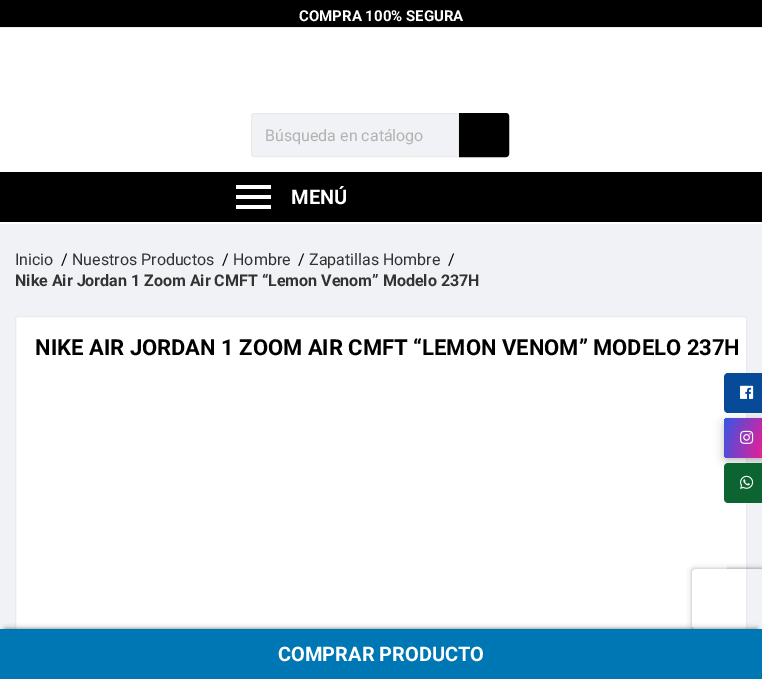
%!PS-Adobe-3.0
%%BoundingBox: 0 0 762 679
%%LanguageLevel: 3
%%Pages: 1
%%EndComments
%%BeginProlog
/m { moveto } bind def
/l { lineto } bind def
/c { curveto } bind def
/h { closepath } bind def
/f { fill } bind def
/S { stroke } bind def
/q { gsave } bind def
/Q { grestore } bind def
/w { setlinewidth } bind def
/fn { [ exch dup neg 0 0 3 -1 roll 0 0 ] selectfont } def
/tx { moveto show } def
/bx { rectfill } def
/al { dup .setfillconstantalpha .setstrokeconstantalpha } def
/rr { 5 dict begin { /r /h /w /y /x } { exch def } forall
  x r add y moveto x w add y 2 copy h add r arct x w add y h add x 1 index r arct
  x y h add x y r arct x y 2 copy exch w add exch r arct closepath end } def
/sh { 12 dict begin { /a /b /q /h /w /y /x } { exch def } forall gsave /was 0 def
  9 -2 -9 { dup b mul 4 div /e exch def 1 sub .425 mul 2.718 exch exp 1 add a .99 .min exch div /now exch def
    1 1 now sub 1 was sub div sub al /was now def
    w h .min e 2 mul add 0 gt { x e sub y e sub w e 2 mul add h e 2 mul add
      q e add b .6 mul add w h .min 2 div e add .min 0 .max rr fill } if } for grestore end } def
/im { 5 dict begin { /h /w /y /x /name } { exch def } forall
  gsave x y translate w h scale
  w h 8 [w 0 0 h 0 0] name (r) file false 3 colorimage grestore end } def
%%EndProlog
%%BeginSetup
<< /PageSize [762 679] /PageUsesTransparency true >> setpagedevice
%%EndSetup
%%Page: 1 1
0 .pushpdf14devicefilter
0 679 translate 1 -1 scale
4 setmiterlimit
1 setgray
0 0 762 679 bx
0 setgray
0 0 762 27 bx
/Roboto-Bold 15 fn
1 setgray
(COMPRA 100% SEGURA) 299 21 tx
0.918 setgray
0 27 762 1 bx
0.941 0.949 0.961 setrgbcolor
254 113.5 m 458.5 113.5 l 458.5 156.5 l 254 156.5 l 252.5 156.5 251.5 155.5 251.5 154 c 251.5 116 l 251.5 114.5 252.5 113.5 254 113.5 c h q f Q
0.918 setgray
S
/Roboto-Regular 16 fn
0.698 setgray
(Búsqueda en catálogo) 265 141 tx
0 setgray
460 114 m 506 114 l 507 114 508 115 508 116 c 508 154 l 508 155 507 156 506 156 c 460 156 l h q f Q
2 w
S
0 172 762 50 bx
1 setgray
236 195 35 4 bx
236 185 35 4 bx
236 205 35 4 bx
/Roboto-Bold 20 fn
(MENÚ) 291 204 tx
0.941 0.949 0.961 setrgbcolor
0 224 762 405 bx
/Roboto-Regular 16 fn
0.2 setgray
(Inicio) 15 265 tx
0 setgray
(/) 61 265 tx
0.2 setgray
(Nuestros Productos) 72 265 tx
0 setgray
(/) 222 265 tx
0.2 setgray
(Hombre) 233 265 tx
0 setgray
(/) 298 265 tx
0.2 setgray
(Zapatillas Hombre) 309 265 tx
0 setgray
(/) 448 265 tx
/Roboto-Bold 16 fn
0.2 setgray
(Nike Air Jordan 1 Zoom Air CMFT “Lemon Venom” Modelo 237H) 15 286 tx
1 setgray
18 317 m 744 317 l 745 317 746 318 746 319 c 746 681 l 16 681 l 16 319 l 16 318 17 317 18 317 c h f
0.918 setgray
1 w
18 316.5 m 744 316.5 l 745.5 316.5 746.5 317.5 746.5 319 c 746.5 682.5 l 15.5 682.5 l 15.5 319 l 15.5 317.5 16.5 316.5 18 316.5 c h S
/Roboto-Bold 22 fn
0 setgray
(NIKE AIR JORDAN 1 ZOOM AIR CMFT “LEMON VENOM” MODELO 237H) 35 355 tx
q
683 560 m 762 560 l 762 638 l 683 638 l h 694 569 m 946 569 l 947 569 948 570 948 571 c 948 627 l 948 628 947 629 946 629 c 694 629 l 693 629 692 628 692 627 c 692 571 l 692 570 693 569 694 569 c h eoclip newpath
0.502 setgray
692 569 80 60 2 2.5 1 sh
Q
0.4 al
1 setgray
688 565 39 64 bx
1 al
0.024 0.29 0.596 setrgbcolor
728 373 m 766 373 l 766 413 l 728 413 l 726 413 724 411 724 409 c 724 377 l 724 375 726 373 728 373 c h f
(image0.raw) 740 385 14 14 im
0 setgray
724 421 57 40 4 5 0.25 sh
q 728 418 m 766 418 l 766 458 l 728 458 l 726 458 724 456 724 454 c 724 422 l 724 420 726 418 728 418 c h clip newpath 822 461 translate 110 110 scale
<< /ShadingType 3 /ColorSpace /DeviceRGB /Coords [0 0 0 0 0 1] /Extend [true true] /Function << /FunctionType 3 /Domain [0 1] /Functions [<< /FunctionType 2 /Domain [0 1] /C0 [0.992 0.957 0.592] /C1 [0.992 0.957 0.592] /N 1 >> << /FunctionType 2 /Domain [0 1] /C0 [0.992 0.957 0.592] /C1 [0.992 0.349 0.286] /N 1 >> << /FunctionType 2 /Domain [0 1] /C0 [0.992 0.349 0.286] /C1 [0.839 0.141 0.624] /N 1 >> << /FunctionType 2 /Domain [0 1] /C0 [0.839 0.141 0.624] /C1 [0.157 0.353 0.922] /N 1 >>] /Bounds [0.05 0.44 0.58] /Encode [0 1 0 1 0 1 0 1] >> >> shfill Q
(image1.raw) 740 430 14 14 im
0.047 0.392 0.192 setrgbcolor
728 463 m 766 463 l 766 503 l 728 503 l 726 503 724 501 724 499 c 724 467 l 724 465 726 463 728 463 c h f
(image2.raw) 740 475 14 14 im
0.2 setgray
5 629 752 40 0 2.5 0.7 sh
0 0.467 0.71 setrgbcolor
0 629 762 50 bx
/Roboto-Bold 20 fn
1 setgray
(COMPRAR PRODUCTO) 278 661 tx
.poppdf14devicefilter showpage
%%EOF
